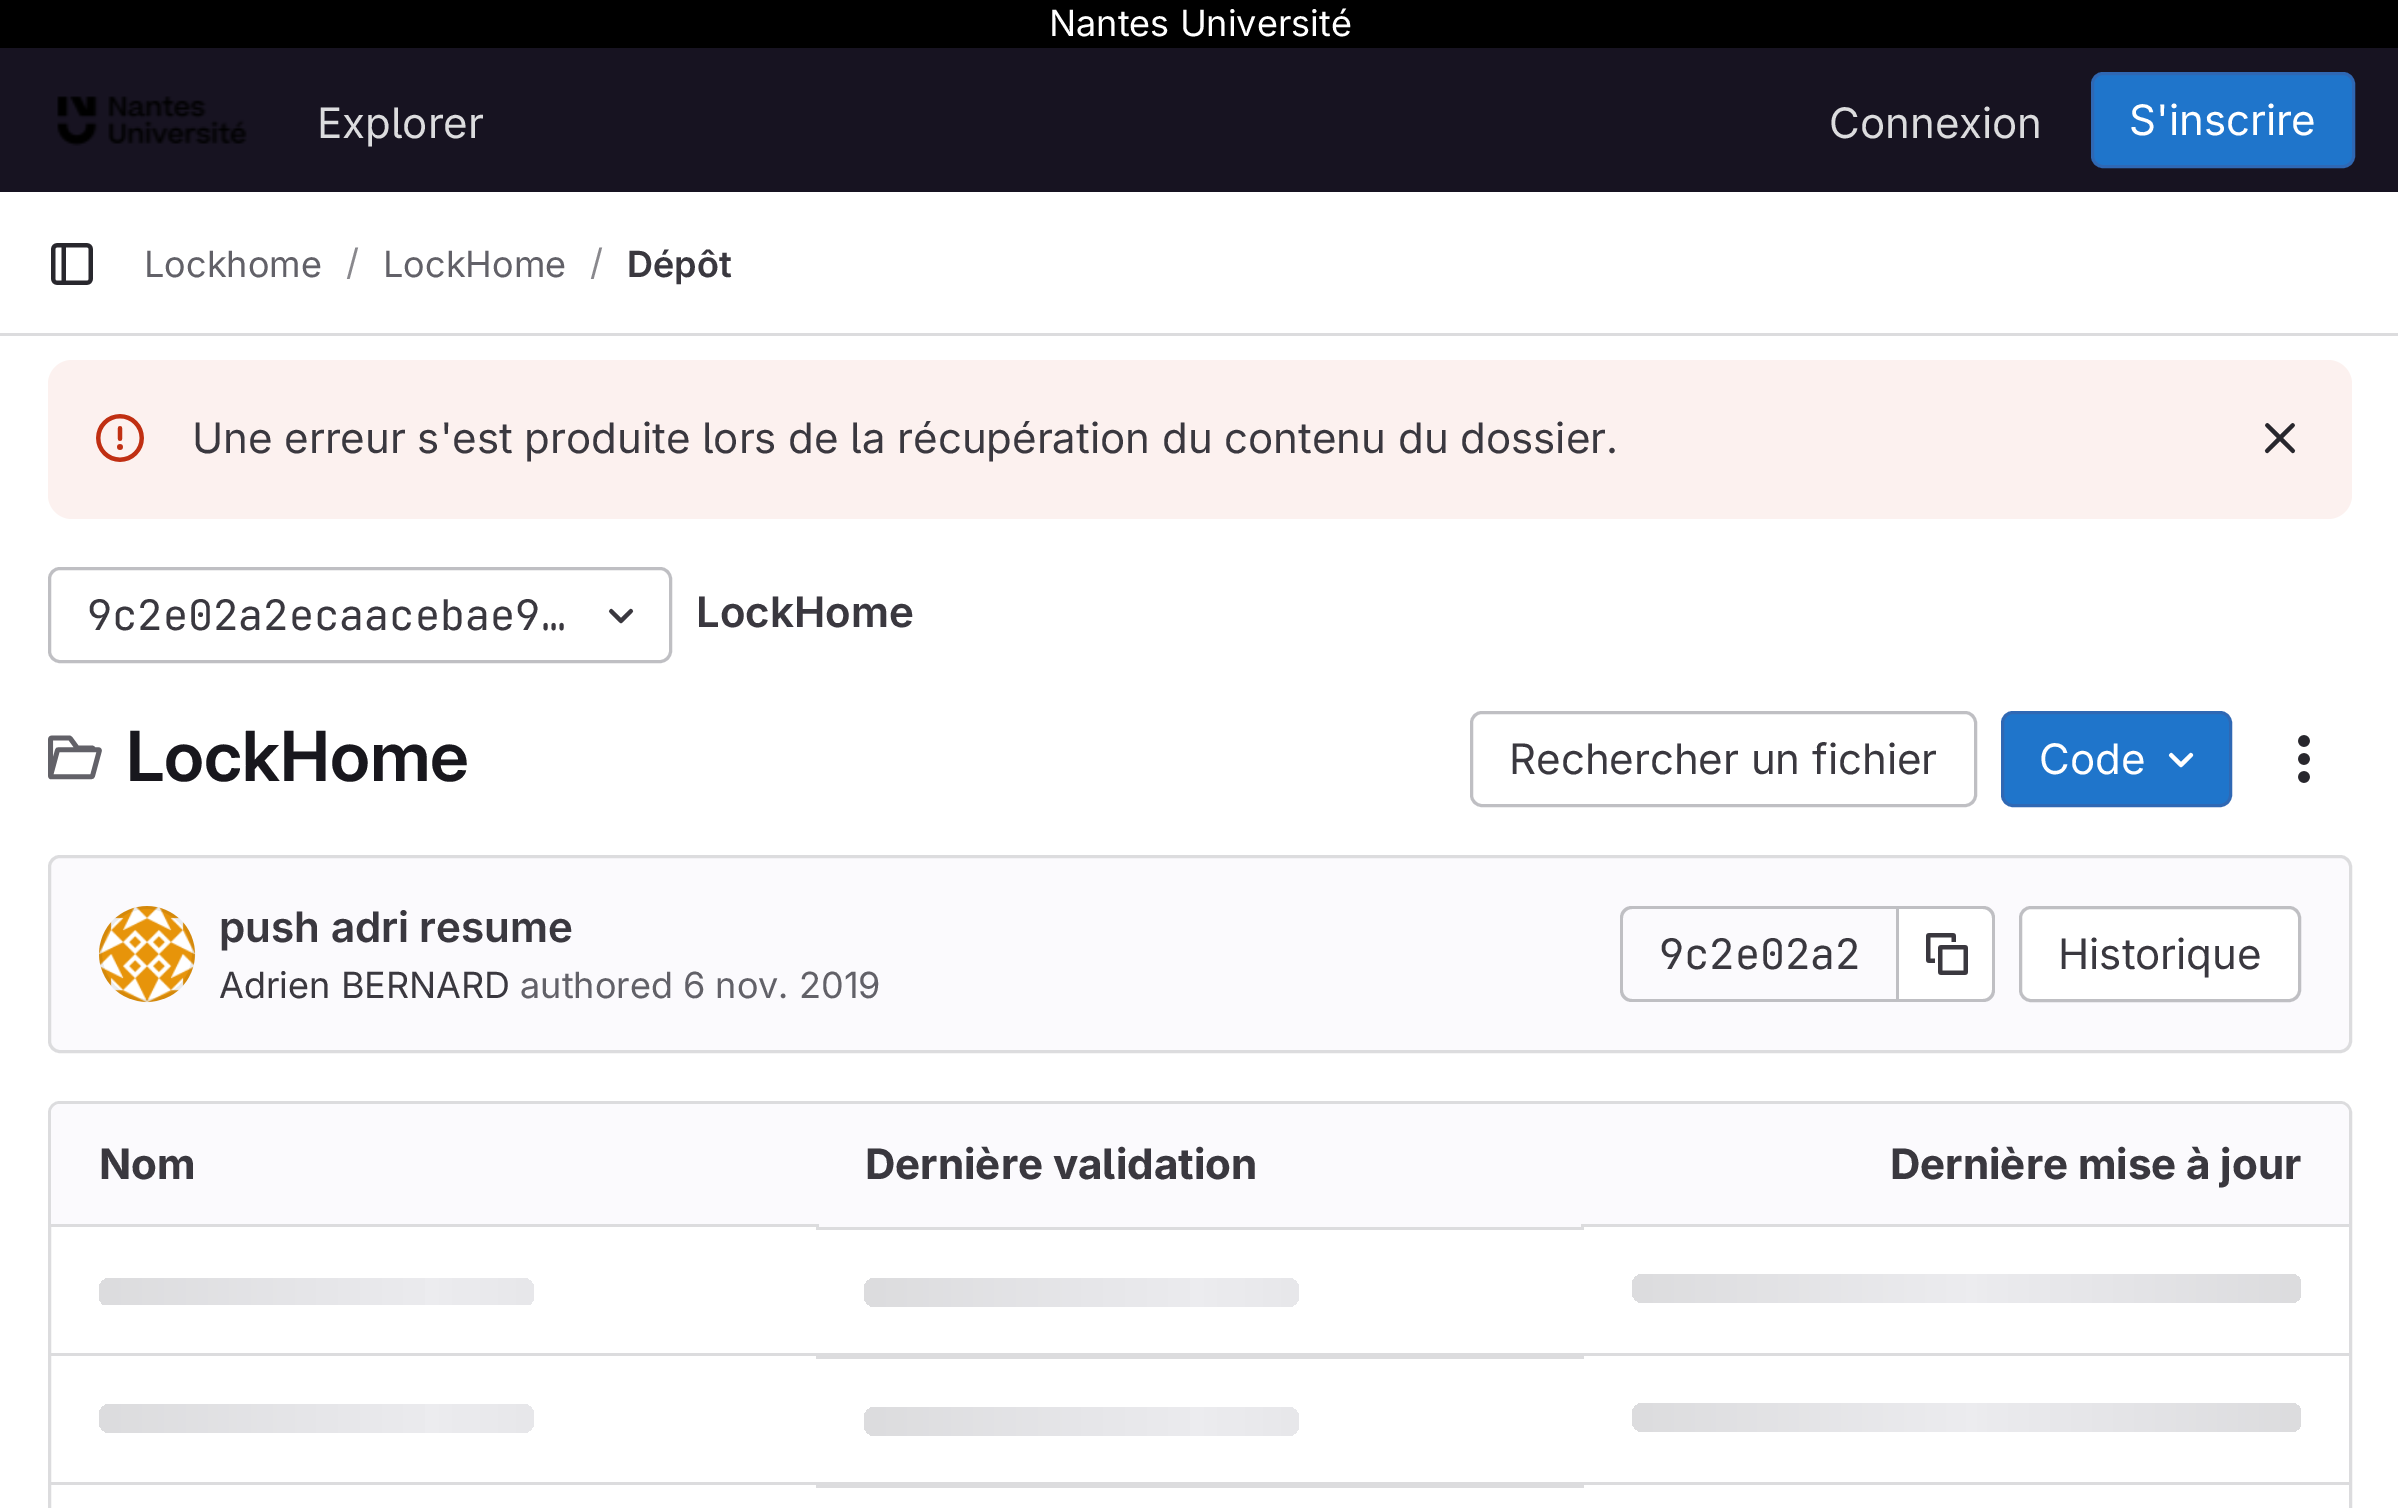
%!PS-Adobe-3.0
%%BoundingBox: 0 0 2398 1508
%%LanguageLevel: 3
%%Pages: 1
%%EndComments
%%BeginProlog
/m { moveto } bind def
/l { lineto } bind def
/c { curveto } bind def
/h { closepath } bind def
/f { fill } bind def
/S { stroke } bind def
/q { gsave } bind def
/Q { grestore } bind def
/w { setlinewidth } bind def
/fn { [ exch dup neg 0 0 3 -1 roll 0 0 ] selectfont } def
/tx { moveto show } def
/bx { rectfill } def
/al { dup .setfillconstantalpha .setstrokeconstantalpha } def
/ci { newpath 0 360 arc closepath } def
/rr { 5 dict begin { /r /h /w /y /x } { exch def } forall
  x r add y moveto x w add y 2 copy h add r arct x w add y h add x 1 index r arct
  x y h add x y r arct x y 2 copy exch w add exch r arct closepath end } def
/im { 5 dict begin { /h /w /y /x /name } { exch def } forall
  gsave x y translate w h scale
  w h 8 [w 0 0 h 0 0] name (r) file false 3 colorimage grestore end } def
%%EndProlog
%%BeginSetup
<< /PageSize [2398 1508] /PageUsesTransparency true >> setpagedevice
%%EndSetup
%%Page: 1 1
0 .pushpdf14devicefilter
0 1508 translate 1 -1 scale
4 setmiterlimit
1 setgray
0 0 2398 1508 bx
0 setgray
0 0 2398 48 bx
/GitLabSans-Regular 36 fn
1 setgray
(Nantes Université) 1049 36 tx
0.09 0.075 0.129 setrgbcolor
0 48 2398 144 bx
(image0.raw) 57 96 190 50 im
/GitLabSans-Regular 42 fn
0.863 0.863 0.871 setrgbcolor
(Explorer) 317 138 tx
(Connexion) 1829 138 tx
0.122 0.459 0.796 setrgbcolor
2092.5 73.5 261 93 10.5 rr q f Q
0.184 0.408 0.706 setrgbcolor
3 w
S
1 setgray
(S'inscrire) 2129 135 tx
0.863 0.863 0.871 setrgbcolor
0 333 2398 3 bx
(image1.raw) 51 243 42 42 im
/GitLabSans-Regular 36 fn
0.384 0.38 0.408 setrgbcolor
(Lockhome) 144 277 tx
0.537 0.533 0.553 setrgbcolor
(/) 346 275 tx
0.384 0.38 0.408 setrgbcolor
(LockHome) 383 277 tx
0.537 0.533 0.553 setrgbcolor
(/) 590 275 tx
/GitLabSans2-SemiBold 36 fn
0.227 0.22 0.247 setrgbcolor
(Dépôt) 627 277 tx
0.988 0.945 0.937 setrgbcolor
48 360 2304 159 24 rr f
(image2.raw) 96 414 48 48 im
/GitLabSans-Regular 42 fn
0.227 0.22 0.247 setrgbcolor
(Une erreur s'est produite lors de la récupération du contenu du dossier.) 192 453 tx
(image3.raw) 2264 423 32 31 im
0.749 0.749 0.765 setrgbcolor
49.5 568.5 621 93 10.5 rr S
/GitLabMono-Regular 42 fn
0.227 0.22 0.247 setrgbcolor
(9c2e02a2ecaacebae9…) 87 630 tx
(image4.raw) 608 608 26 16 im
/GitLabSans2-SemiBold 42 fn
(LockHome) 696 627 tx
(image5.raw) 48 735 54 45 im
/GitLabSans-SemiBold 69 fn
0.094 0.09 0.114 setrgbcolor
(LockHome) 126 781 tx
0.749 0.749 0.765 setrgbcolor
1471.5 712.5 504 93 10.5 rr S
/GitLabSans-Regular 42 fn
0.227 0.22 0.247 setrgbcolor
(Rechercher un fichier) 1509 774 tx
0.122 0.459 0.796 setrgbcolor
2002.5 712.5 228 93 10.5 rr q f Q
0.184 0.408 0.706 setrgbcolor
S
1 setgray
(Code) 2039 774 tx
(image6.raw) 2168 752 26 16 im
(image7.raw) 2298 735 12 48 im
0.984 0.98 0.992 setrgbcolor
49.5 856.5 2301 195 10.5 rr q f Q
0.863 0.863 0.871 setrgbcolor
S
(image8.raw) 99 906 96 96 im
0.08 al
0.02 0.02 0.024 setrgbcolor
147 954 46.5 ci S
/GitLabSans2-SemiBold 42 fn
1 al
0.227 0.22 0.247 setrgbcolor
(push adri resume) 219 942 tx
/GitLabSans-Regular 36 fn
(Adrien BERNARD) 219 998 tx
0.384 0.38 0.408 setrgbcolor
(authored 6 nov. 2019) 520 998 tx
0.749 0.749 0.765 setrgbcolor
1632 906 m 1896 906 l 1896 1002 l 1632 1002 l 1625 1002 1620 997 1620 990 c 1620 918 l 1620 911 1625 906 1632 906 c h 1632 909 m 1896 909 l 1896 999 l 1632 999 l 1627 999 1623 995 1623 990 c 1623 918 l 1623 913 1627 909 1632 909 c h eofill
/GitLabMono-Regular 42 fn
0.227 0.22 0.247 setrgbcolor
(9c2e02a2) 1659 969 tx
1 setgray
1899 909 m 1983 909 l 1988 909 1992 913 1992 918 c 1992 990 l 1992 995 1988 999 1983 999 c 1899 999 l h f
0.749 0.749 0.765 setrgbcolor
1899 906 m 1983 906 l 1990 906 1995 911 1995 918 c 1995 990 l 1995 997 1990 1002 1983 1002 c 1899 1002 l h 1899 909 m 1983 909 l 1988 909 1992 913 1992 918 c 1992 990 l 1992 995 1988 999 1983 999 c 1899 999 l h eofill
1896 906 3 96 bx
(image9.raw) 1926 933 42 42 im
1 setgray
2020.5 907.5 279 93 10.5 rr q f Q
0.749 0.749 0.765 setrgbcolor
S
/GitLabSans-Regular 42 fn
0.227 0.22 0.247 setrgbcolor
(Historique) 2058 969 tx
0.863 0.863 0.871 setrgbcolor
49.5 1102.5 2301 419 10.5 rr S
0.984 0.98 0.992 setrgbcolor
60 1104 m 816 1104 l 816 1227 l 51 1227 l 51 1113 l 51 1108 55 1104 60 1104 c h f
/GitLabSans-Bold 42 fn
0.227 0.22 0.247 setrgbcolor
(Nom) 99 1179 tx
0.984 0.98 0.992 setrgbcolor
816 1104 768 123 bx
0.227 0.22 0.247 setrgbcolor
(Dernière validation) 865 1179 tx
0.984 0.98 0.992 setrgbcolor
1584 1104 m 2340 1104 l 2345 1104 2349 1108 2349 1113 c 2349 1227 l 1584 1227 l h f
0.227 0.22 0.247 setrgbcolor
(Dernière mise à jour) 1890 1179 tx
0.863 0.863 0.871 setrgbcolor
51 1353 2298 3 bx
51 1224 768 3 bx
q
99 1278 435 29 11 rr clip newpath
q 110 1278 m 523 1278 l 529 1278 534 1283 534 1289 c 534 1305 l 99 1305 l 99 1289 l 99 1283 104 1278 110 1278 c h clip newpath
<< /ShadingType 2 /ColorSpace /DeviceRGB /Coords [99 1278 769 1278] /Extend [true true] /Function << /FunctionType 3 /Domain [0 1] /Functions [<< /FunctionType 2 /Domain [0 1] /C0 [0.863 0.863 0.871] /C1 [0.925 0.925 0.937] /N 1 >> << /FunctionType 2 /Domain [0 1] /C0 [0.925 0.925 0.937] /C1 [0.863 0.863 0.871] /N 1 >>] /Bounds [0.5] /Encode [0 1 0 1] >> >> shfill Q
Q
816 1227 768 3 bx
q 864 1278 435 29 11 rr clip newpath
<< /ShadingType 2 /ColorSpace /DeviceRGB /Coords [864 1278 1534 1278] /Extend [true true] /Function << /FunctionType 3 /Domain [0 1] /Functions [<< /FunctionType 2 /Domain [0 1] /C0 [0.863 0.863 0.871] /C1 [0.925 0.925 0.937] /N 1 >> << /FunctionType 2 /Domain [0 1] /C0 [0.925 0.925 0.937] /C1 [0.863 0.863 0.871] /N 1 >>] /Bounds [0.5] /Encode [0 1 0 1] >> >> shfill Q
1581 1224 768 3 bx
q
1632 1274 670 29 11 rr clip newpath
q 1643 1274 m 2301 1274 l 2301 1303 l 1643 1303 l 1637 1303 1632 1298 1632 1292 c 1632 1285 l 1632 1279 1637 1274 1643 1274 c h clip newpath
<< /ShadingType 2 /ColorSpace /DeviceRGB /Coords [1632 1274 2302 1274] /Extend [true true] /Function << /FunctionType 3 /Domain [0 1] /Functions [<< /FunctionType 2 /Domain [0 1] /C0 [0.863 0.863 0.871] /C1 [0.925 0.925 0.937] /N 1 >> << /FunctionType 2 /Domain [0 1] /C0 [0.925 0.925 0.937] /C1 [0.863 0.863 0.871] /N 1 >>] /Bounds [0.5] /Encode [0 1 0 1] >> >> shfill Q
Q
51 1482 2298 3 bx
q 99 1404 435 29 11 rr clip newpath
<< /ShadingType 2 /ColorSpace /DeviceRGB /Coords [99 1404 769 1404] /Extend [true true] /Function << /FunctionType 3 /Domain [0 1] /Functions [<< /FunctionType 2 /Domain [0 1] /C0 [0.863 0.863 0.871] /C1 [0.925 0.925 0.937] /N 1 >> << /FunctionType 2 /Domain [0 1] /C0 [0.925 0.925 0.937] /C1 [0.863 0.863 0.871] /N 1 >>] /Bounds [0.5] /Encode [0 1 0 1] >> >> shfill Q
816 1356 768 3 bx
q 864 1407 435 29 11 rr clip newpath
<< /ShadingType 2 /ColorSpace /DeviceRGB /Coords [864 1407 1534 1407] /Extend [true true] /Function << /FunctionType 3 /Domain [0 1] /Functions [<< /FunctionType 2 /Domain [0 1] /C0 [0.863 0.863 0.871] /C1 [0.925 0.925 0.937] /N 1 >> << /FunctionType 2 /Domain [0 1] /C0 [0.925 0.925 0.937] /C1 [0.863 0.863 0.871] /N 1 >>] /Bounds [0.5] /Encode [0 1 0 1] >> >> shfill Q
q
1632 1403 670 29 11 rr clip newpath
q 1643 1403 m 2301 1403 l 2301 1432 l 1643 1432 l 1637 1432 1632 1427 1632 1421 c 1632 1414 l 1632 1408 1637 1403 1643 1403 c h clip newpath
<< /ShadingType 2 /ColorSpace /DeviceRGB /Coords [1632 1403 2302 1403] /Extend [true true] /Function << /FunctionType 3 /Domain [0 1] /Functions [<< /FunctionType 2 /Domain [0 1] /C0 [0.863 0.863 0.871] /C1 [0.925 0.925 0.937] /N 1 >> << /FunctionType 2 /Domain [0 1] /C0 [0.925 0.925 0.937] /C1 [0.863 0.863 0.871] /N 1 >>] /Bounds [0.5] /Encode [0 1 0 1] >> >> shfill Q
Q
816 1485 768 3 bx
.poppdf14devicefilter showpage
%%EOF
